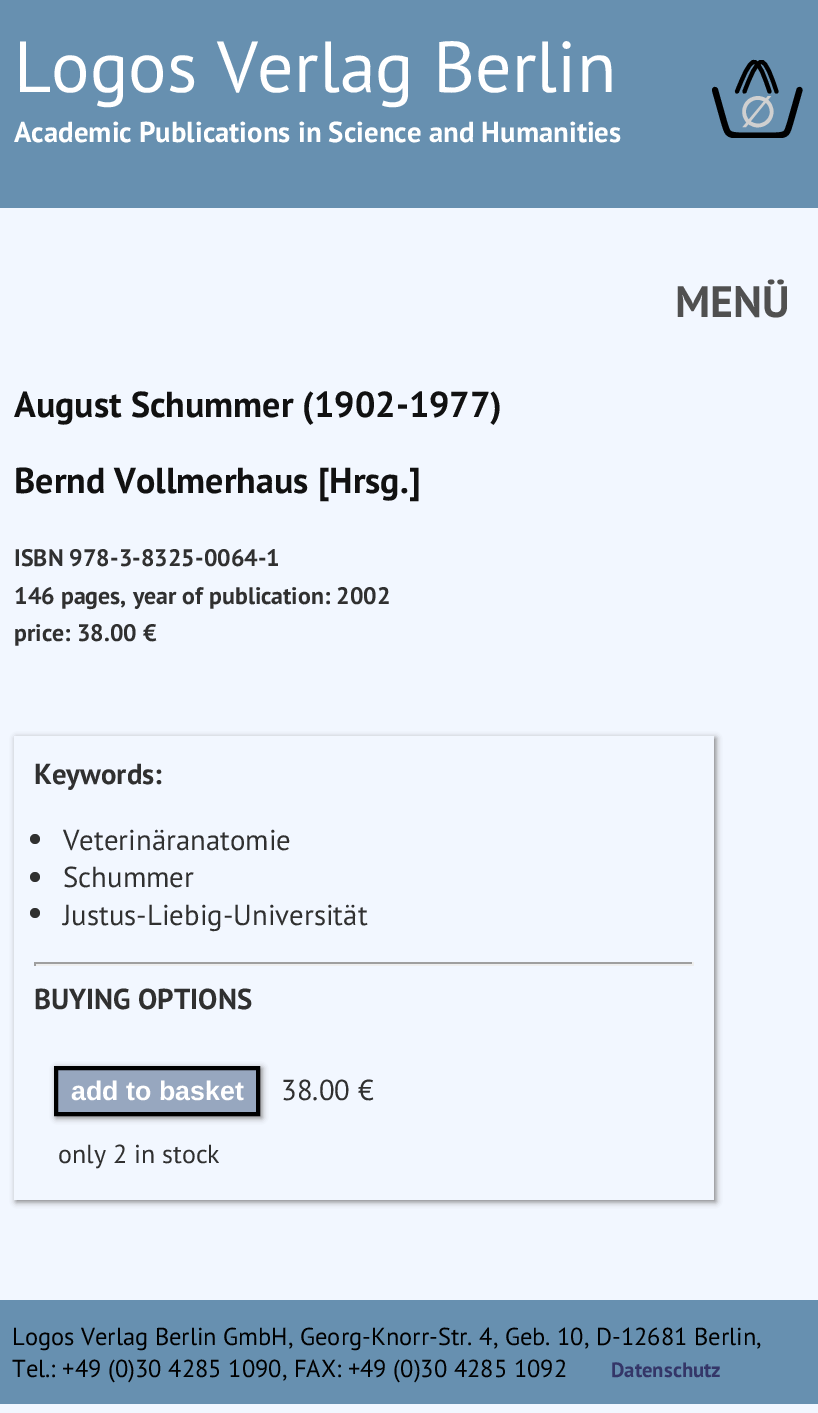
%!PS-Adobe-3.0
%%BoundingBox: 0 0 818 1413
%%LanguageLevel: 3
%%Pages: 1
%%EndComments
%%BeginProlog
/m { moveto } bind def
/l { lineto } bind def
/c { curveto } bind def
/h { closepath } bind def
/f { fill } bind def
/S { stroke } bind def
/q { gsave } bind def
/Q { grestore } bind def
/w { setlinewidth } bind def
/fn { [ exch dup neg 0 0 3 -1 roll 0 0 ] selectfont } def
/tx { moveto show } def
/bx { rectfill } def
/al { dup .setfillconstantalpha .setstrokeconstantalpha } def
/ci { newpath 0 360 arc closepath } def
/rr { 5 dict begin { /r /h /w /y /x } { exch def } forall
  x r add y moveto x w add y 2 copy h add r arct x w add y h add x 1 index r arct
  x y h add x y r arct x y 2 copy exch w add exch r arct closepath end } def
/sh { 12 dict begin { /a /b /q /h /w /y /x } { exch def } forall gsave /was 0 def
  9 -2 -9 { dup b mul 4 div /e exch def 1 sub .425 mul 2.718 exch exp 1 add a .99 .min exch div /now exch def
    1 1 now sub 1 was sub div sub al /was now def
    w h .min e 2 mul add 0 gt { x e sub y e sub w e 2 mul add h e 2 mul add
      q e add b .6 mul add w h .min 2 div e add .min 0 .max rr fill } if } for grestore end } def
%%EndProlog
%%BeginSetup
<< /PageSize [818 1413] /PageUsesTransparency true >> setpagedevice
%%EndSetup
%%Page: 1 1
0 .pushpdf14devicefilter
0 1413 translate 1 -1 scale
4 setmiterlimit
0.949 0.969 1 setrgbcolor
0 0 818 1413 bx
0.404 0.565 0.69 setrgbcolor
0 0 818 208 bx
/PTSans-Regular 72 fn
1 setgray
(Logos Verlag Berlin) 14 92 tx
/PTSans-Bold 28.8 fn
(Academic Publications in Science and Humanities) 14 142 tx
q
712 60 92 78 rectclip
0 setgray
6.1 w
1 setlinecap
715 90 m 724 122 l 727.5 133 727 135 738.5 135.5 c 777 135.5 l 787.5 135 787 132.5 790 123.5 c 799.5 90 l S
Q
/DejaVuSans-Bold 42 fn
0.816 setgray
(∅) 739 127 tx
0 setgray
4.1 w
1 setlinecap
737 91.5 m 743 77 748.5 62.5 754 62 c 759.5 62 764.5 77 769.5 91.5 c 744.5 91.5 m 750 77 756 62 761.5 62 c 766.5 62 771.5 76.5 776.5 91.5 c S
/PTSans-Bold 44 fn
0.314 setgray
(MENÜ) 675 317 tx
/PTSans-Bold 36 fn
0.067 setgray
(August Schummer \(1902-1977\)) 14 417 tx
(Bernd Vollmerhaus [Hrsg.]) 14 493 tx
/PTSans-Bold 23.9 fn
0.188 setgray
(ISBN 978-3-8325-0064-1) 14 566 tx
(146 pages, year of publication: 2002) 14 604 tx
(price: 38.00 €) 14 641 tx
q
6 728 m 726 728 l 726 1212 l 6 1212 l h 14 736 m 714 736 l 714 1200 l 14 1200 l h eoclip newpath
0.502 setgray
16 738 700 464 0 3 1 sh
Q
/PTSans-Bold 28.8 fn
(Keywords:) 34 784 tx
35 839 5 ci f
/PTSans-Regular 28.8 fn
(Veterinäranatomie) 63 850 tx
35 877 5 ci f
(Schummer) 63 887 tx
35 913 5 ci f
(Justus-Liebig-Universität) 63 925 tx
0.624 setgray
34 962 660 2 bx
0.933 setgray
692 962 2 4 bx
34 964 660 2 bx
0.624 setgray
34 962 2 4 bx
/PTSans-Bold 28.8 fn
0.188 setgray
(BUYING OPTIONS) 34 1009 tx
0.502 setgray
56 1068 206 50 0 3 1 sh
0.592 0.655 0.749 setrgbcolor
56 1068 m 258 1068 l 258 1114 l 56 1114 l h q f Q
0 setgray
4 w
0 setlinecap
S
/LiberationSans-Bold 26.75 fn
1 setgray
(add to basket) 71 1100 tx
/PTSans-Regular 28.8 fn
0.188 setgray
(38.00 €) 281 1100 tx
/PTSans-Regular 26 fn
(only 2 in stock) 58 1163 tx
0.404 0.565 0.69 setrgbcolor
0 1300 818 104 bx
/PTSans-Regular 24.5 fn
0 setgray
(Logos Verlag Berlin GmbH, Georg-Knorr-Str. 4, Geb. 10, D-12681 Berlin,) 12 1345 tx
(Tel.: +49 \(0\)30 4285 1090, FAX: +49 \(0\)30 4285 1092) 12 1377 tx
/PTSans-Bold 20.75 fn
0.204 0.212 0.408 setrgbcolor
(Datenschutz) 611 1377 tx
.poppdf14devicefilter showpage
%%EOF
